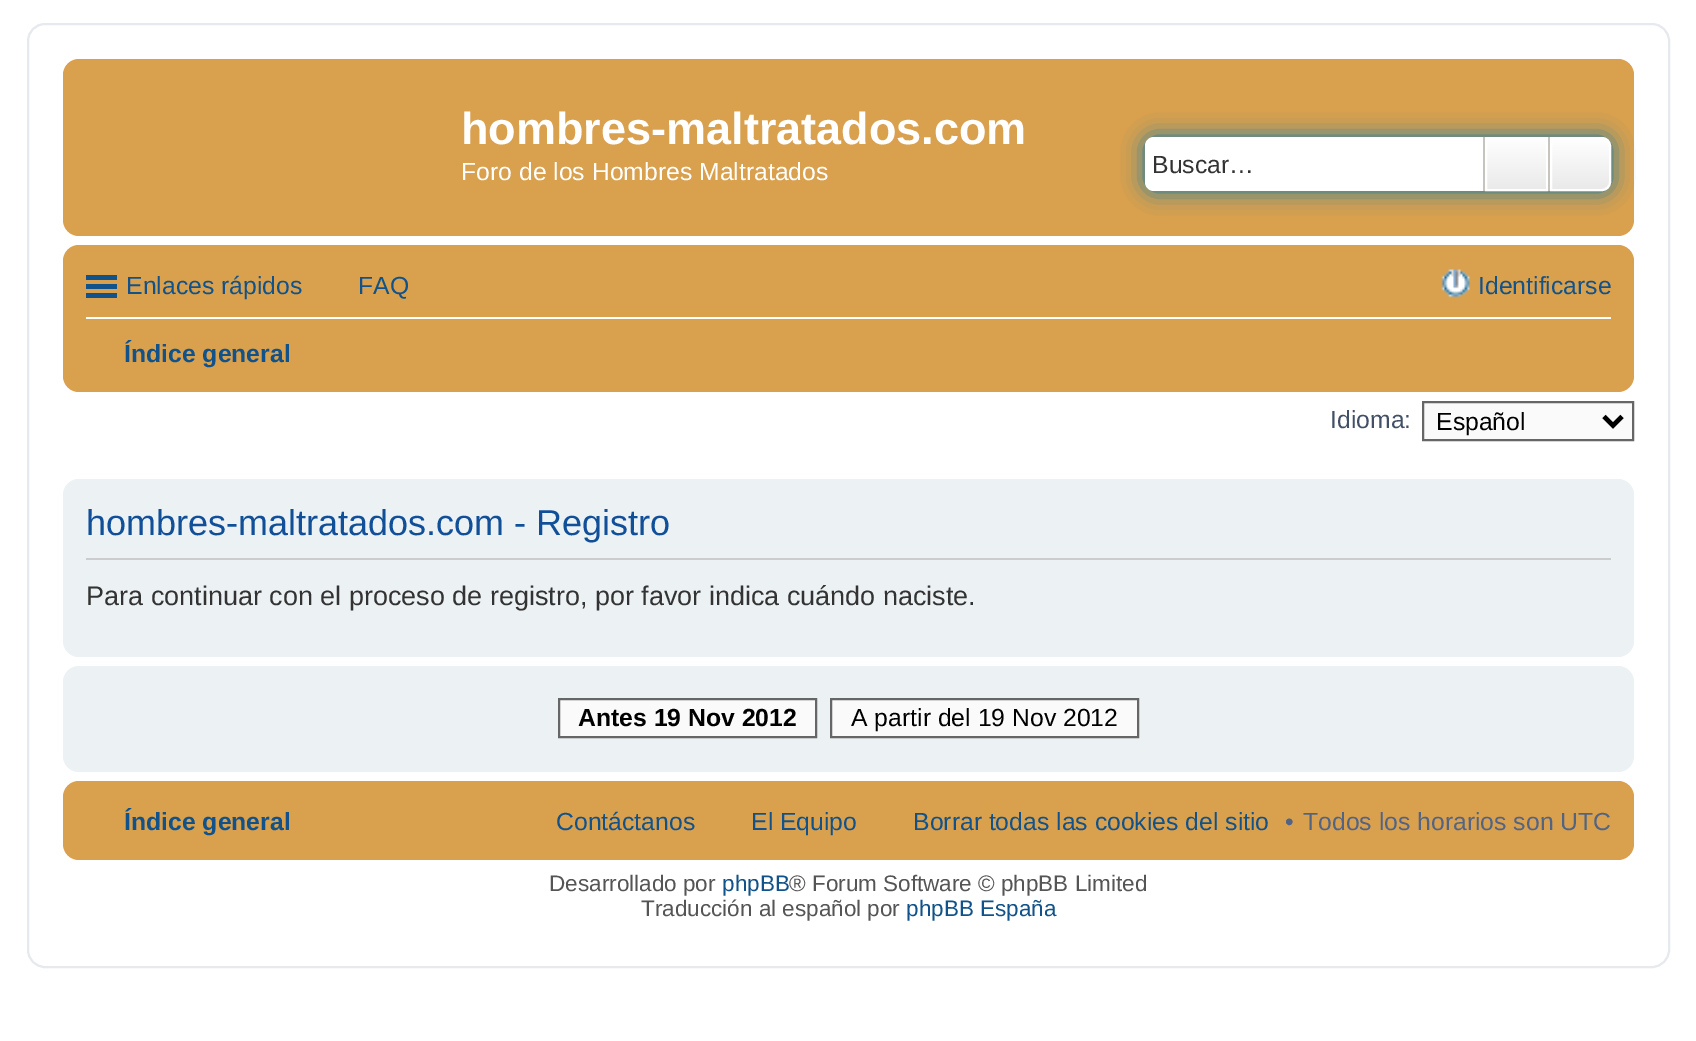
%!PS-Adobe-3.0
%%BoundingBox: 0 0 1696 1041
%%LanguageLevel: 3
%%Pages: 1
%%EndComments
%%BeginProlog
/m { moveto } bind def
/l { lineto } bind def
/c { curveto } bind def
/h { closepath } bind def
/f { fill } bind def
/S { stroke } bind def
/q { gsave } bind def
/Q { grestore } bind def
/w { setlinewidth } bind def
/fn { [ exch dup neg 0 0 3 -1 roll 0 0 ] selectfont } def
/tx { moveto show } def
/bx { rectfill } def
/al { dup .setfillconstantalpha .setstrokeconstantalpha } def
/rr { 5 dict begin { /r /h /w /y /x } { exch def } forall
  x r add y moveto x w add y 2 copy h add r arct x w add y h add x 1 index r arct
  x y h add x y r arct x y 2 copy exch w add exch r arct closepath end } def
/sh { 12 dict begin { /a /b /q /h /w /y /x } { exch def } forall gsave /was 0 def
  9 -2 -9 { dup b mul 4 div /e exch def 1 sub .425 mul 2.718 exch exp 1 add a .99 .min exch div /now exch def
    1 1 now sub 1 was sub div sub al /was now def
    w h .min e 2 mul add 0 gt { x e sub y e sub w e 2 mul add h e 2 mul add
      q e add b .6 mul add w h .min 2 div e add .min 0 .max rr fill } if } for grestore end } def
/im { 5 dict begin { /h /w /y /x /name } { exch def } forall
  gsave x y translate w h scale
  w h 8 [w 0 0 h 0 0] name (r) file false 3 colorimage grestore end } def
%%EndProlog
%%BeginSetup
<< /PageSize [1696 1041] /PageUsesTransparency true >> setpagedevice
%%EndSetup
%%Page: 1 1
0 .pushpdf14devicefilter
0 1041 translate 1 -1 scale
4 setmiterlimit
1 setgray
0 0 1696 1041 bx
0.902 0.914 0.929 setrgbcolor
2 w
28 24 1641 943 17 rr S
0.851 0.627 0.306 setrgbcolor
63 59 1571 177 16 rr f
/LiberationSans-Bold 45 fn
1 setgray
(hombres-maltratados.com) 461 144 tx
/LiberationSans-Regular 24.75 fn
(Foro de los Hombres Maltratados) 461 180 tx
0 0.459 0.69 setrgbcolor
1145 137 466 54 9 11 1 sh
1 setgray
1154 137 m 1483 137 l 1483 191 l 1154 191 l 1149 191 1145 187 1145 182 c 1145 146 l 1145 141 1149 137 1154 137 c h f
0.2 setgray
(Buscar…) 1152 173 tx
q 1487 139 m 1546 139 l 1546 189 l 1487 189 l h clip newpath
<< /ShadingType 2 /ColorSpace /DeviceRGB /Coords [1517 137 1517 191] /Extend [true true] /Function << /FunctionType 2 /Domain [0 1] /C0 [1 1 1] /C1 [0.914 0.914 0.914] /N 1 >> >> shfill Q
1 setgray
1486 138 61 52 rectstroke
0.78 0.765 0.749 setrgbcolor
1548 137 2 54 bx
1483 137 2 54 bx
q 1551 138 m 1602 138 l 1606.5 138 1610 141.5 1610 146 c 1610 182 l 1610 186.5 1606.5 190 1602 190 c 1551 190 l h clip newpath
<< /ShadingType 2 /ColorSpace /DeviceRGB /Coords [1581 137 1581 191] /Extend [true true] /Function << /FunctionType 2 /Domain [0 1] /C0 [1 1 1] /C1 [0.914 0.914 0.914] /N 1 >> >> shfill Q
1 setgray
1551 138 m 1602 138 l 1606.5 138 1610 141.5 1610 146 c 1610 182 l 1610 186.5 1606.5 190 1602 190 c 1551 190 l h S
0.851 0.627 0.306 setrgbcolor
63 245 1571 147 16 rr f
0.063 0.322 0.537 setrgbcolor
86 275 31 5 bx
86 284 31 5 bx
86 293 31 5 bx
(Enlaces rápidos) 126 294 tx
(FAQ) 358 294 tx
(image0.raw) 1441 269 29 29 im
(Identificarse) 1478 294 tx
1 setgray
86 317 1525 2 bx
/LiberationSans-Bold 24.75 fn
0.063 0.322 0.537 setrgbcolor
(Índice general) 124 362 tx
/LiberationSans-Regular 24.75 fn
0.259 0.314 0.404 setrgbcolor
(Idioma:) 1330 428 tx
0.98 setgray
1423 402 m 1633 402 l 1633 440 l 1423 440 l h q f Q
0.4 setgray
S
0 setgray
4.5 w
1604 416.5 m 1613 425.5 l 1622 416.5 l S
(Español) 1436 430 tx
0.925 0.945 0.953 setrgbcolor
63 479 1571 178 16 rr f
0.8 setgray
86 558 1525 2 bx
/LiberationSans-Regular 36 fn
0.067 0.314 0.596 setrgbcolor
(hombres-maltratados.com - Registro) 86 535 tx
/LiberationSans-Regular 27 fn
0.2 setgray
(Para continuar con el proceso de registro, por favor indica cuándo naciste.) 86 605 tx
0.925 0.945 0.953 setrgbcolor
63 666 1571 106 16 rr f
0.98 setgray
559 699 m 816 699 l 816 737 l 559 737 l h q f Q
0.4 setgray
2 w
S
/LiberationSans-Bold 24.75 fn
0 setgray
(Antes 19 Nov 2012) 578 726 tx
0.98 setgray
831 699 m 1138 699 l 1138 737 l 831 737 l h q f Q
0.4 setgray
S
/LiberationSans-Regular 24.75 fn
0 setgray
(A partir del 19 Nov 2012) 851 726 tx
0.851 0.627 0.306 setrgbcolor
63 781 1571 79 16 rr f
/LiberationSans-Bold 24.75 fn
0.063 0.322 0.537 setrgbcolor
(Índice general) 124 830 tx
/LiberationSans-Regular 24.75 fn
(Contáctanos) 556 830 tx
(El Equipo) 751 830 tx
(Borrar todas las cookies del sitio) 913 830 tx
0.325 0.392 0.51 setrgbcolor
(•) 1285 830 tx
(Todos los horarios son UTC) 1303 830 tx
/LiberationSans-Regular 22.5 fn
0.333 setgray
(Desarrollado por) 549 891 tx
0.063 0.322 0.537 setrgbcolor
(phpBB) 722 891 tx
0.333 setgray
(® Forum Software © phpBB Limited) 789 891 tx
(Traducción al español por) 641 916 tx
0.063 0.322 0.537 setrgbcolor
(phpBB España) 906 916 tx
.poppdf14devicefilter showpage
%%EOF
